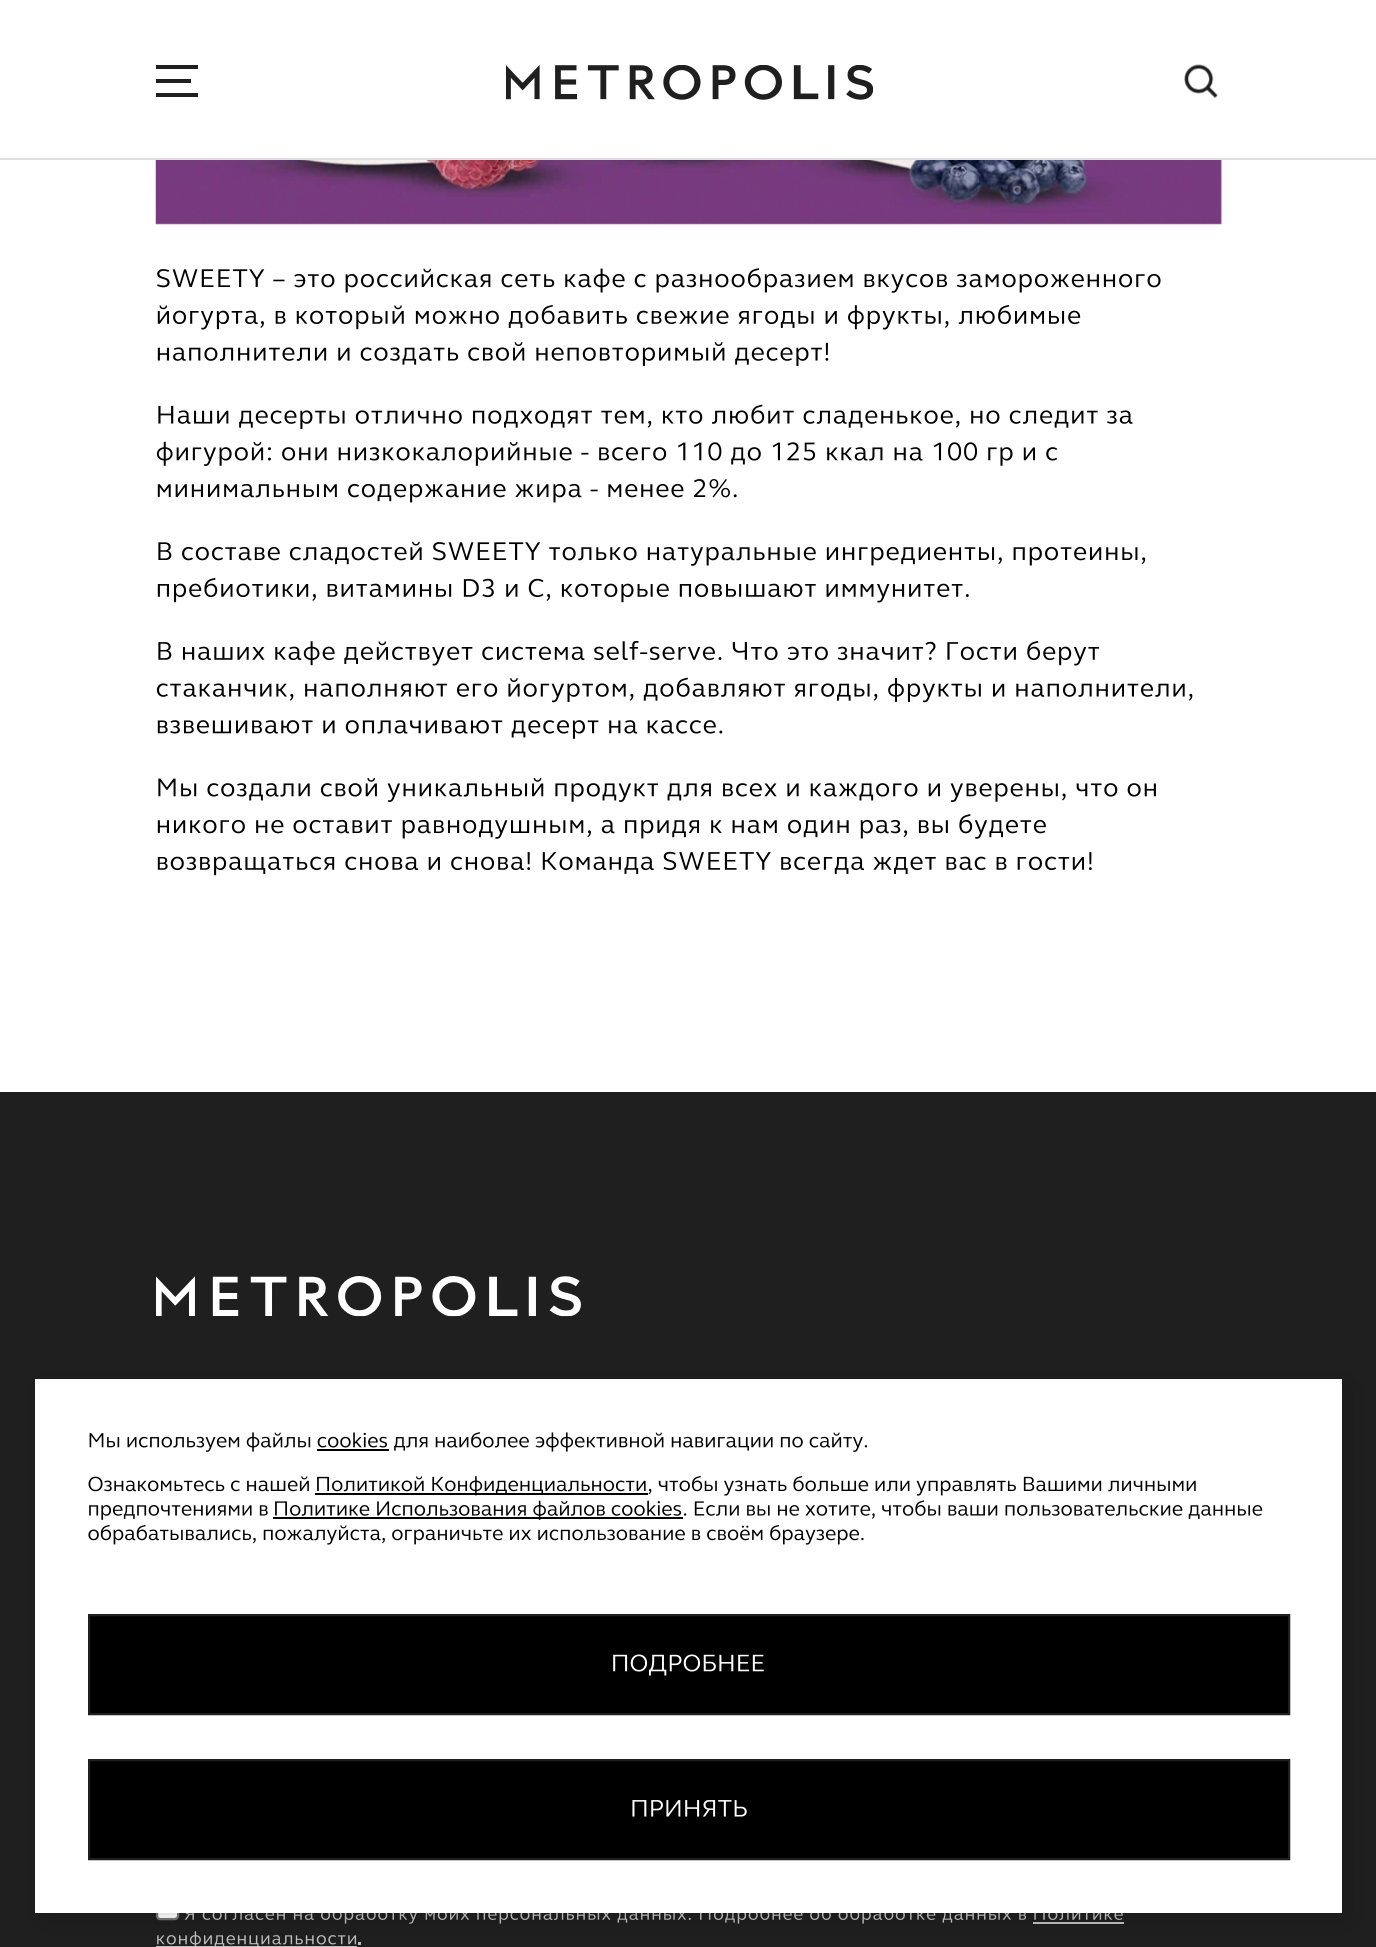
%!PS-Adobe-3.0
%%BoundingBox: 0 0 1376 1947
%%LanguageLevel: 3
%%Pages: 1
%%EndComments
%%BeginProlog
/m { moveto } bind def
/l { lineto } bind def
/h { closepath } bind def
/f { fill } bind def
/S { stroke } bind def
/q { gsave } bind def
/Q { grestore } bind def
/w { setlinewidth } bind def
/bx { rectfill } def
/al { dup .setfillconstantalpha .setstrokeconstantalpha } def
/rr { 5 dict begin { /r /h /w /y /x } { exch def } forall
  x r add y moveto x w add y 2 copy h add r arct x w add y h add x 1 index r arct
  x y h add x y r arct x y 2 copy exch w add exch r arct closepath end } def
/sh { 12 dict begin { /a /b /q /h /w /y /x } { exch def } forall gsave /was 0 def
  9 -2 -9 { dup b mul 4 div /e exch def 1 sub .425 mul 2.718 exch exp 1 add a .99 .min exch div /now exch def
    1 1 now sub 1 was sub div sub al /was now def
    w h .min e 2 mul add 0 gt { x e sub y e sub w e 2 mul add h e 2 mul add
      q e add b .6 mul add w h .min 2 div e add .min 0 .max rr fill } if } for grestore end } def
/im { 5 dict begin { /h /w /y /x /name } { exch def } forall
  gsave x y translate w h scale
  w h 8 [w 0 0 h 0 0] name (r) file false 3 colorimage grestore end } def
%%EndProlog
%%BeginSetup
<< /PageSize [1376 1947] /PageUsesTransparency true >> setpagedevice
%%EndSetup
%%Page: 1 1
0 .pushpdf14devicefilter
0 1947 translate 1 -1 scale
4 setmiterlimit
1 setgray
0 0 1376 1947 bx
0.875 setgray
0 158 1376 2 bx
0.122 setgray
156 65 42 4 bx
156 79 35 4 bx
156 93 42 4 bx
(image0.raw) 506 65 367 35 im
(image1.raw) 1184 64 34 34 im
(image2.raw) 155 160 1067 65 im
(image3.raw) 157 268 1004 25 im
(image4.raw) 157 304 924 26 im
(image5.raw) 157 342 672 24 im
(image6.raw) 158 404 975 25 im
(image7.raw) 156 441 902 25 im
(image8.raw) 157 479 580 24 im
(image9.raw) 158 541 988 25 im
(image10.raw) 157 577 812 26 im
(image11.raw) 158 640 942 26 im
(image12.raw) 156 677 1037 26 im
(image13.raw) 157 720 566 19 im
(image14.raw) 158 778 998 24 im
(image15.raw) 157 814 889 25 im
(image16.raw) 157 851 935 25 im
0 1092 1376 855 bx
(image17.raw) 156 1276 425 41 im
1 setgray
157 1898 21 21 3 rr q f Q
0.463 setgray
2 w
S
(image18.raw) 184 1913 843 11 im
(image19.raw) 1034 1913 89 7 im
0.765 setgray
1033 1922 91 2 bx
(image20.raw) 157 1931 200 15 im
358 1942 3 3 bx
156 1946 201 1 bx
0 setgray
42 1386 1307 534 0 21 0.15 sh
1 setgray
35 1379 1307 534 bx
(image21.raw) 89 1432 222 20 im
(image22.raw) 317 1432 70 16 im
(image23.raw) 394 1432 474 20 im
0 setgray
317 1449 72 2 bx
(image24.raw) 88 1476 221 16 im
315 1493 333 2 bx
(image25.raw) 317 1476 329 20 im
(image26.raw) 648 1475 548 21 im
(image27.raw) 89 1505 179 15 im
273 1517 410 2 bx
(image28.raw) 275 1500 407 20 im
(image29.raw) 683 1500 580 19 im
(image30.raw) 88 1524 776 21 im
89 1615 m 1289 1615 l 1289 1714 l 89 1714 l h q f Q
0.122 setgray
S
(image31.raw) 613 1654 151 22 im
0 setgray
89 1760 m 1289 1760 l 1289 1859 l 89 1859 l h q f Q
0.122 setgray
S
(image32.raw) 632 1800 115 17 im
.poppdf14devicefilter showpage
%%EOF
